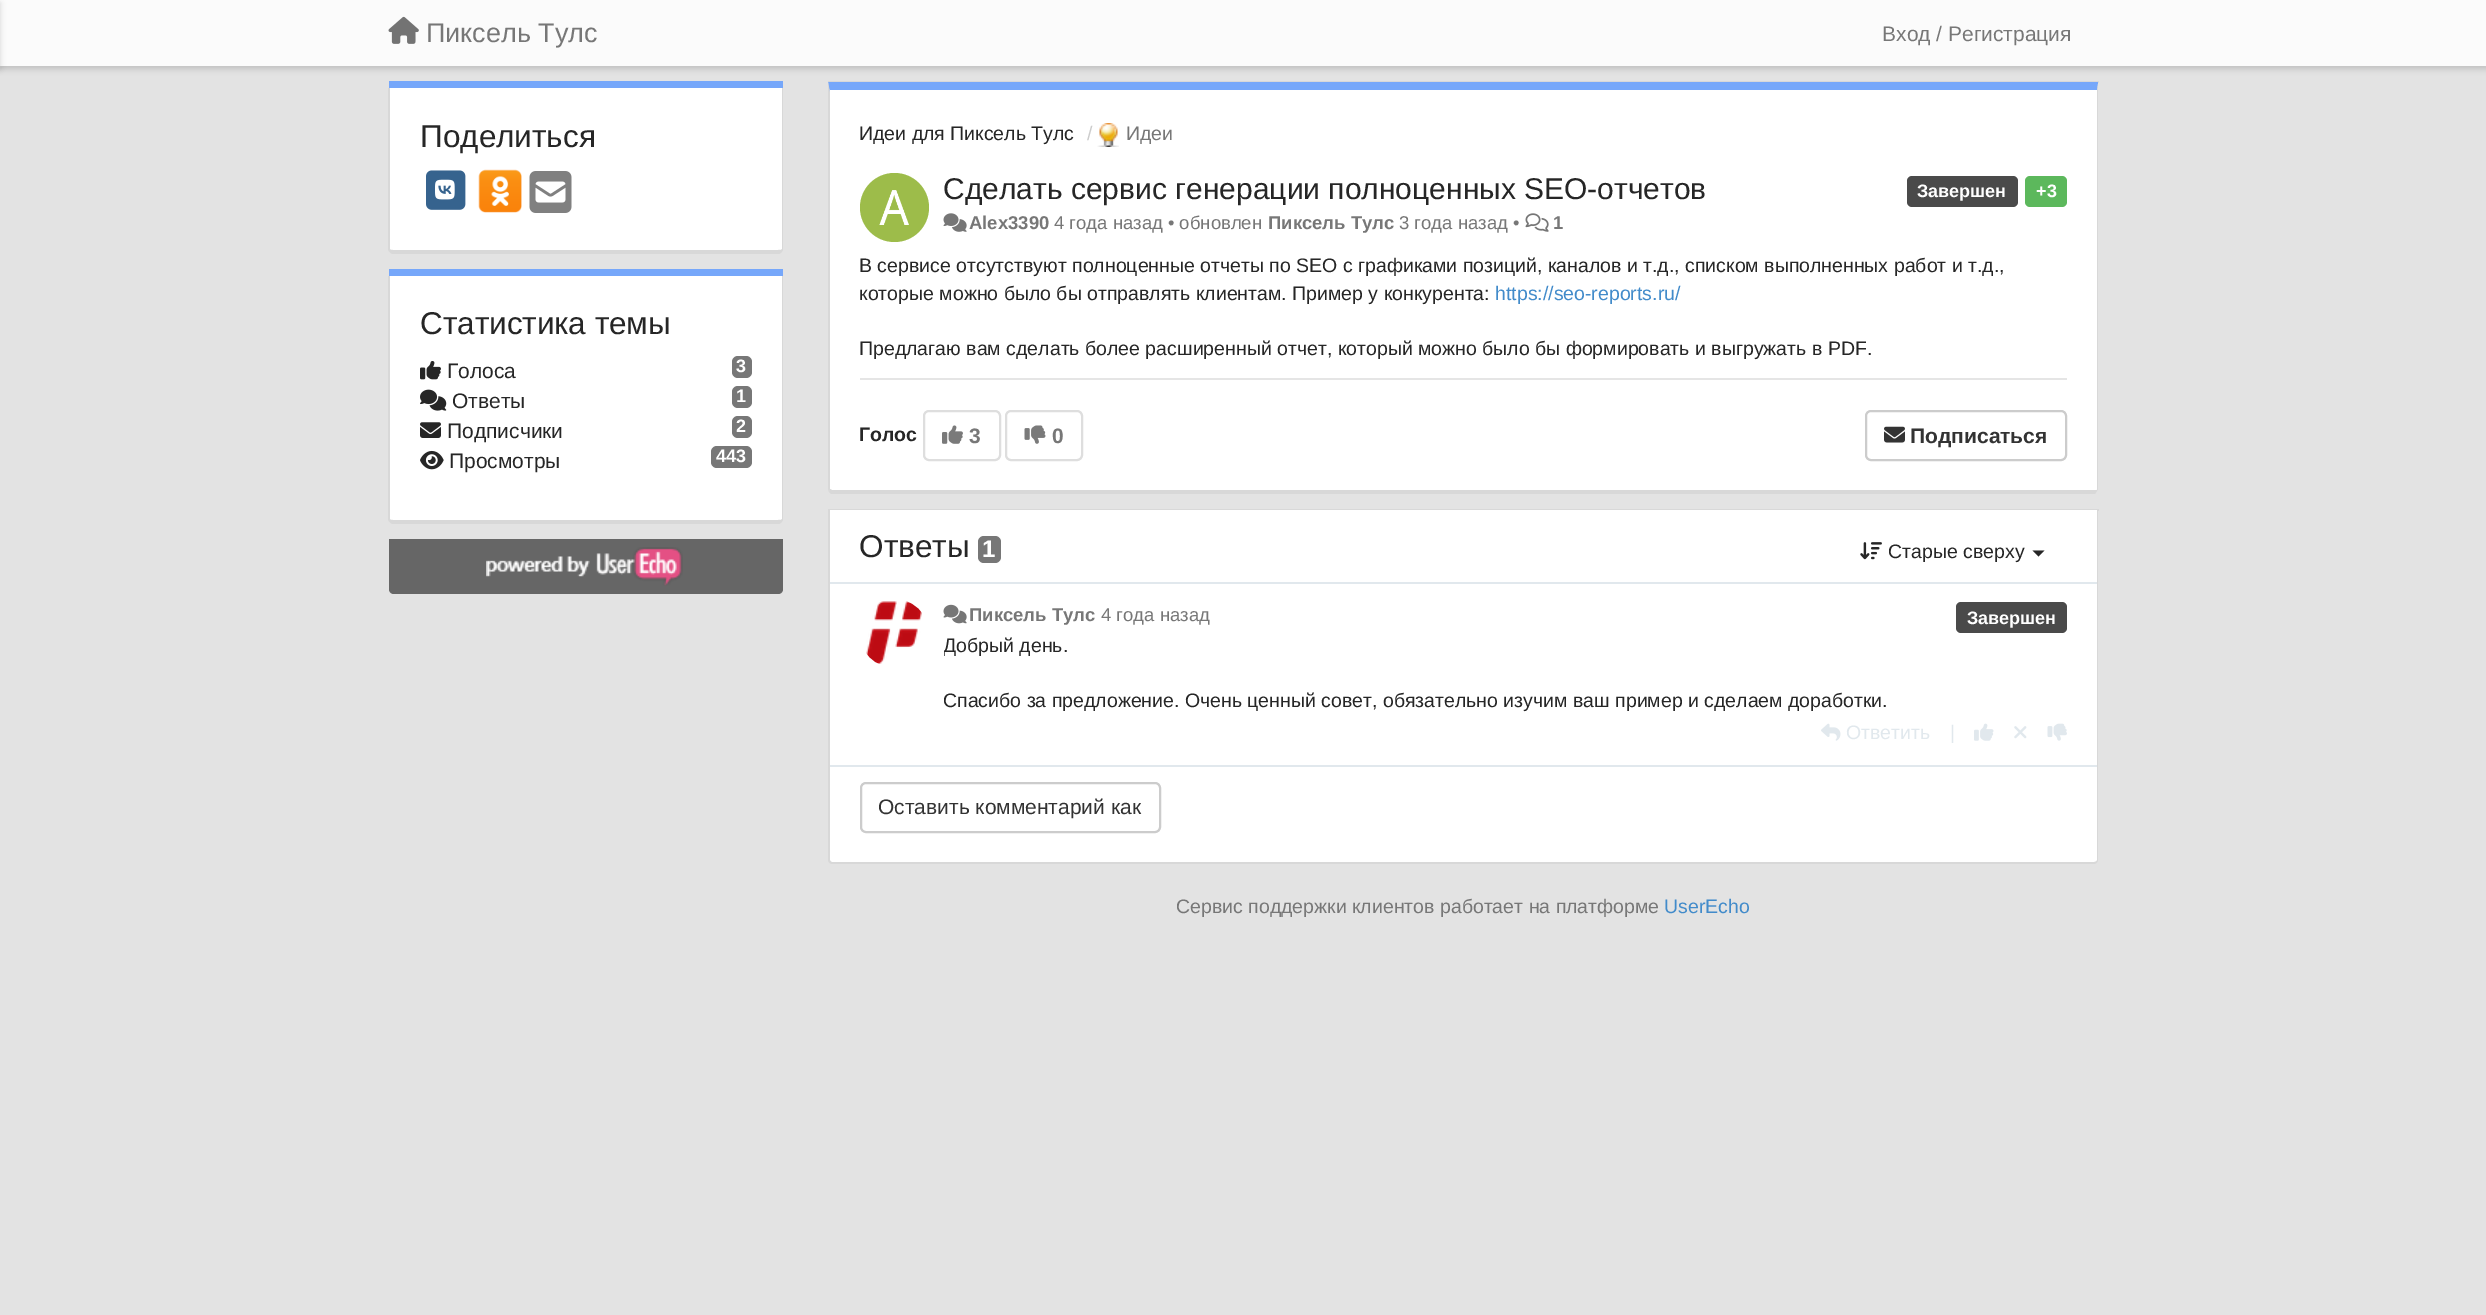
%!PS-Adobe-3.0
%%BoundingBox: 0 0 2486 1315
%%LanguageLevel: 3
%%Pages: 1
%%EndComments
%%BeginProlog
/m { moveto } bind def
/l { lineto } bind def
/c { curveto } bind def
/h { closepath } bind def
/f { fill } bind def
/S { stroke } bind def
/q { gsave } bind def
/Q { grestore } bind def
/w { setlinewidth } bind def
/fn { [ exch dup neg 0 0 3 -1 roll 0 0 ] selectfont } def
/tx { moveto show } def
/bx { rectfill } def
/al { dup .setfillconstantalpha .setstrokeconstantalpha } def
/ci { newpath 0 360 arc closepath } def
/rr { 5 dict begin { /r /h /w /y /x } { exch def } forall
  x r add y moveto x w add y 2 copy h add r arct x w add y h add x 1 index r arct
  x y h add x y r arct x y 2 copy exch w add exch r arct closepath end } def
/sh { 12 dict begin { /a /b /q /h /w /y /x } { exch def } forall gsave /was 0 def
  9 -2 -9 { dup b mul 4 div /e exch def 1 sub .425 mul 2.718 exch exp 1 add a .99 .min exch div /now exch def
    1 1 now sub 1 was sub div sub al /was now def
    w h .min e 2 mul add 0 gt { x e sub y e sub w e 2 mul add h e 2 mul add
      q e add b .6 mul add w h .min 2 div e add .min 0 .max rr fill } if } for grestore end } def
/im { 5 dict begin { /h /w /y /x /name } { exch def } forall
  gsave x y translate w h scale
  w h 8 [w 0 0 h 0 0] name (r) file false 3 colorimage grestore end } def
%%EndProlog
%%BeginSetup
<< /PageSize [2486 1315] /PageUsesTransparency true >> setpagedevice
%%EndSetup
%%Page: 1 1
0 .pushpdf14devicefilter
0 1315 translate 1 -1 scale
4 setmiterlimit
0.89 setgray
0 0 2486 1315 bx
0 setgray
0 3 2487 66 0 3 0.15 sh
0.984 setgray
0 0 2486 66 bx
0 setgray
-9 3 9 66 0 3 0.15 sh
(image0.raw) 388 16 31 28 im
/LiberationSans-Regular 27 fn
0.467 setgray
(Пиксель Тулс) 426 42 tx
/LiberationSans-Regular 21 fn
(Вход / Регистрация) 1882 41 tx
0.463 0.655 0.98 setrgbcolor
389 81 394 7 bx
1 setgray
390 88 m 782 88 l 782 249 l 782 250 780 250 778 250 c 393 250 l 391 250 390 250 390 249 c h f
0.847 setgray
388 88 m 783 88 l 783 249 l 783 251 781 254 778 254 c 393 254 l 391 254 388 251 388 249 c h 390 88 m 782 88 l 782 249 l 782 250 780 250 778 250 c 393 250 l 391 250 390 250 390 249 c h eofill
/LiberationSans-Regular 31.5 fn
0.149 setgray
(Поделиться) 420 147 tx
(image1.raw) 426 170 40 40 im
(image2.raw) 435 179 20 21 im
(image3.raw) 478 169 44 44 im
(image4.raw) 529 171 43 42 im
0.463 0.655 0.98 setrgbcolor
389 269 394 7 bx
1 setgray
390 276 m 782 276 l 782 519 l 782 520 780 520 778 520 c 393 520 l 391 520 390 520 390 519 c h f
0.847 setgray
388 276 m 783 276 l 783 519 l 783 521 781 524 778 524 c 393 524 l 391 524 388 521 388 519 c h 390 276 m 782 276 l 782 519 l 782 520 780 520 778 520 c 393 520 l 391 520 390 520 390 519 c h eofill
0.149 setgray
(Статистика темы) 420 334 tx
(image5.raw) 420 361 21 19 im
/LiberationSans-Regular 21 fn
(Голоса) 447 378 tx
0.467 setgray
732 356 20 22 6 rr f
/LiberationSans-Bold 18 fn
1 setgray
(3) 736 372 tx
(image6.raw) 420 389 27 22 im
/LiberationSans-Regular 21 fn
0.149 setgray
(Ответы) 452 408 tx
0.467 setgray
732 386 20 22 6 rr f
/LiberationSans-Bold 18 fn
1 setgray
(1) 736 402 tx
(image7.raw) 420 422 21 16 im
/LiberationSans-Regular 21 fn
0.149 setgray
(Подписчики) 447 438 tx
0.467 setgray
732 416 20 22 6 rr f
/LiberationSans-Bold 18 fn
1 setgray
(2) 736 432 tx
(image8.raw) 420 450 24 20 im
/LiberationSans-Regular 21 fn
0.149 setgray
(Просмотры) 449 468 tx
0.467 setgray
711 446 41 22 6 rr f
/LiberationSans-Bold 18 fn
1 setgray
(443) 716 462 tx
0.4 setgray
389 539 m 783 539 l 783 589 l 783 592 781 594 778 594 c 394 594 l 391 594 389 592 389 589 c h f
(image9.raw) 486 547 197 39 im
0.847 setgray
828 81 1271 2 bx
1 setgray
830 90 m 2097 90 l 2097 489 l 2097 490 2096 490 2094 490 c 832 490 l 831 490 830 490 830 489 c h f
0.463 0.655 0.98 setrgbcolor
830 90 m 830 93 l 828 82 l 2098 82 l 2097 90 l h f
0.847 setgray
2098 85 m 2098 489 l 2097 491 l 2097 490 l 2097 489 l 2097 90 l h f
831 494 m 829 492 l 830 489 l 832 490 l 2097 490 l 2097 491 l 2095 494 l h f
828 82 m 828 489 l 829 492 l 830 489 l 830 93 l h f
/LiberationSans-Regular 19.5 fn
0.149 setgray
(Идеи для Пиксель Тулс) 859 140 tx
0.8 setgray
(/) 1087 140 tx
(image10.raw) 1097 123 22 24 im
0.467 setgray
(Идеи) 1126 140 tx
0.616 0.737 0.29 setrgbcolor
894.5 207.5 34.5 ci f
(image11.raw) 879 190 30 35 im
/LiberationSans-Regular 30 fn
0.149 setgray
(Сделать сервис генерации полноценных SEO-отчетов) 943 199 tx
0.29 setgray
1907 176 111 31 5 rr f
/LiberationSans-Bold 18 fn
1 setgray
(Завершен) 1917 197 tx
0.361 0.722 0.361 setrgbcolor
2025 176 42 31 5 rr f
1 setgray
(+3) 2036 197 tx
(image12.raw) 943 213 24 19 im
/LiberationSans-Bold 18.5 fn
0.467 setgray
(Alex3390) 969 229 tx
/LiberationSans-Regular 18.5 fn
(4 года назад • обновлен) 1054 229 tx
/LiberationSans-Bold 18.5 fn
(Пиксель Тулс) 1268 229 tx
/LiberationSans-Regular 18.5 fn
(3 года назад •) 1399 229 tx
(image13.raw) 1525 213 24 19 im
/LiberationSans-Bold 18.5 fn
(1) 1553 229 tx
/LiberationSans-Regular 19.5 fn
0.149 setgray
(В сервисе отсутствуют полноценные отчеты по SEO с графиками позиций, каналов и т.д., списком выполненных работ и т.д.,) 859 272 tx
(которые можно было бы отправлять клиентам. Пример у конкурента:) 859 300 tx
0.259 0.545 0.792 setrgbcolor
(https://seo-reports.ru/) 1495 300 tx
0.149 setgray
(Предлагаю вам сделать более расширенный отчет, который можно было бы формировать и выгружать в PDF.) 859 355 tx
0.898 setgray
860 378 1207 2 bx
/LiberationSans-Bold 19.5 fn
0.149 setgray
(Голос) 859 441 tx
0.871 setgray
2 w
924 411 76 49 5 rr S
(image14.raw) 942 425 21 19 im
/LiberationSans-Bold 21 fn
0.467 setgray
(3) 969 443 tx
0.871 setgray
1006 411 76 49 5 rr S
(image15.raw) 1024 425 22 19 im
0.467 setgray
(0) 1052 443 tx
0.8 setgray
1866 411 200 49 5 rr S
(image16.raw) 1884 426 21 17 im
0.2 setgray
(Подписаться) 1910 443 tx
0.847 setgray
828 509 1271 2 bx
1 setgray
830 510 m 2097 510 l 2097 860 l 2097 861.5 2095.5 863 2094 863 c 833 863 l 831.5 863 830 861.5 830 860 c h f
0.847 setgray
828 510 m 2098 510 l 2098 860 l 2098 862 2096 864 2094 864 c 832 864 l 830 864 828 862 828 860 c h 830 510 m 2097 510 l 2097 860 l 2097 861 2096 862 2094 862 c 832 862 l 831 862 830 861 830 860 c h eofill
/LiberationSans-Regular 31.5 fn
0.149 setgray
(Ответы) 859 557 tx
0.467 setgray
978 536 23 27 6 rr f
/LiberationSans-Bold 24 fn
1 setgray
(1) 982 557 tx
(image17.raw) 1860 542 22 18 im
/LiberationSans-Regular 19.5 fn
0.149 setgray
(Старые сверху) 1888 558 tx
2032.5 550.5 m 2044.5 550.5 l 2038.5 556.5 l h f
0.882 0.91 0.929 setrgbcolor
830 582 1267 2 bx
830 765 1267 2 bx
(image18.raw) 866 601 56 63 im
(image19.raw) 943 604 24 20 im
/LiberationSans-Bold 18.5 fn
0.467 setgray
(Пиксель Тулс) 969 621 tx
/LiberationSans-Regular 18.5 fn
(4 года назад) 1101 621 tx
0.29 setgray
1956 602 111 31 5 rr f
/LiberationSans-Bold 18 fn
1 setgray
(Завершен) 1967 624 tx
q
944 633 1123 83 rectclip
/LiberationSans-Regular 19.5 fn
0.149 setgray
(Добрый день.) 943 652 tx
(Спасибо за предложение. Очень ценный совет, обязательно изучим ваш пример и сделаем доработки.) 943 707 tx
Q
(image20.raw) 1821 723 20 18 im
/LiberationSans-Regular 19.5 fn
0.882 0.91 0.929 setrgbcolor
(Ответить) 1846 739 tx
(|) 1950 739 tx
(image21.raw) 1974 723 20 18 im
(image22.raw) 2014 726 13 13 im
(image23.raw) 2047 723 20 18 im
0.8 setgray
861 783 299 49 5 rr S
/LiberationSans-Regular 21 fn
0.2 setgray
(Оставить комментарий как) 878 814 tx
/LiberationSans-Regular 19.5 fn
0.467 setgray
(Сервис поддержки клиентов работает на платформе) 1176 913 tx
0.259 0.545 0.792 setrgbcolor
(UserEcho) 1664 913 tx
.poppdf14devicefilter showpage
%%EOF
